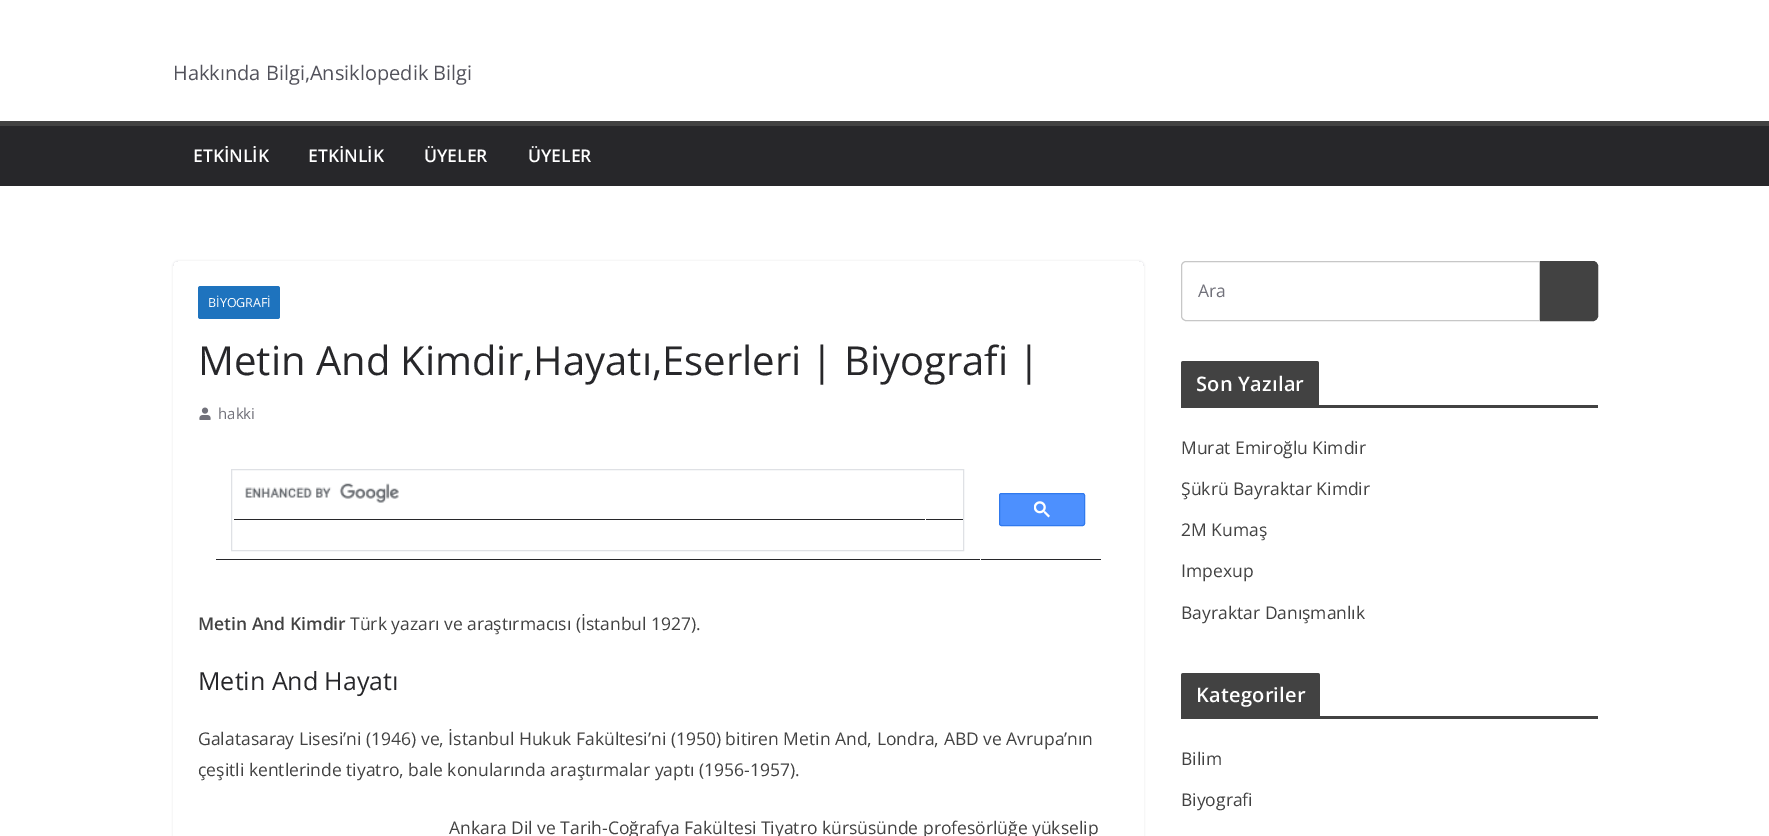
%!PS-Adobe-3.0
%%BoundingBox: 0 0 1769 836
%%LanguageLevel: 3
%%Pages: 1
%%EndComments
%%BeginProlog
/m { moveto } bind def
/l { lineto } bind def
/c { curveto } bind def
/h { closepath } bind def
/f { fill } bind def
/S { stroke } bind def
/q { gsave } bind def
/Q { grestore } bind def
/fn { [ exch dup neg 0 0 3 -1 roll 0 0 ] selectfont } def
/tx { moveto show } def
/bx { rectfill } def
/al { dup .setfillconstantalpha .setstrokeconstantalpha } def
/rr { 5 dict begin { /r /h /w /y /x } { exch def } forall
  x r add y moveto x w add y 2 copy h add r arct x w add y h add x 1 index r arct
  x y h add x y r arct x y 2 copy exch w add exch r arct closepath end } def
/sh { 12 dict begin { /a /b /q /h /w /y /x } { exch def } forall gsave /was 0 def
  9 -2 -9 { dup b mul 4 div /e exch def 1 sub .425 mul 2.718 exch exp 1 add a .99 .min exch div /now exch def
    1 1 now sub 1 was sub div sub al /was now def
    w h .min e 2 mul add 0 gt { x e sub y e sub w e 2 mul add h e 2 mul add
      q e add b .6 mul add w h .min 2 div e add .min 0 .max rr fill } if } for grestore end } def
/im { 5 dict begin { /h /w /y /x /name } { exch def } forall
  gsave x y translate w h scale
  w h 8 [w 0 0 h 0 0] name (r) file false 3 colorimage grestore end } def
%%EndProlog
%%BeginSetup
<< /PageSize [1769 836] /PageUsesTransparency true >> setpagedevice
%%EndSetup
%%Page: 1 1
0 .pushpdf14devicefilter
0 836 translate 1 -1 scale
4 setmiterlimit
1 setgray
0 0 1769 836 bx
/OpenSans-Regular 20 fn
0.322 0.322 0.357 setrgbcolor
(Hakkında Bilgi,Ansiklopedik Bilgi) 173 80 tx
0.153 0.153 0.165 setrgbcolor
0 126 1769 60 bx
0.259 setgray
0 121 1769 5 bx
/OpenSans-SemiBold 17.5 fn
1 setgray
(ETKİNLİK) 193 162 tx
(ETKİNLİK) 308 162 tx
(ÜYELER) 424 162 tx
(ÜYELER) 528 162 tx
q
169 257 m 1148 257 l 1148 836 l 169 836 l h 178 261 m 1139 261 l 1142 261 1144 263 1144 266 c 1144 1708 l 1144 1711 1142 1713 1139 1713 c 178 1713 l 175 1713 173 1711 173 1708 c 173 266 l 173 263 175 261 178 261 c h eoclip newpath
0.894 0.894 0.906 setrgbcolor
173 261 971 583 5 1 1 sh
Q
0.118 0.451 0.745 setrgbcolor
198 286 82 33 2.5 rr f
/OpenSans-Regular 12.5 fn
1 setgray
(BİYOGRAFİ) 208 307 tx
/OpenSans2-Regular 40 fn
0.153 0.153 0.165 setrgbcolor
(Metin And Kimdir,Hayatı,Eserleri | Biyografi |) 198 375 tx
(image0.raw) 199 407 12 13 im
/OpenSans-Regular 15 fn
0.443 0.443 0.478 setrgbcolor
(hakki) 218 419 tx
0.153 0.153 0.165 setrgbcolor
215 559 886 1 bx
1 setgray
215 559 1 1 bx
0.875 0.882 0.898 setrgbcolor
231.5 469.5 732 81 rectstroke
0.153 0.153 0.165 setrgbcolor
233 519 730 1 bx
1 setgray
233 519 1 1 bx
(image1.raw) 245 483 154 20 im
925 519 1 1 bx
980 559 1 1 bx
0.302 0.565 0.996 setrgbcolor
999.5 493.5 85 32 2 rr q f Q
0.188 0.475 0.929 setrgbcolor
S
(image2.raw) 1034 501 16 17 im
/OpenSans-SemiBold 17.5 fn
0.259 setgray
(Metin And Kimdir) 198 630 tx
/OpenSans-Regular 17.5 fn
(Türk yazarı ve araştırmacısı \(İstanbul 1927\).) 350 630 tx
/OpenSans2-Regular 25 fn
0.153 0.153 0.165 setrgbcolor
(Metin And Hayatı) 198 690 tx
/OpenSans-Regular 17.5 fn
0.259 setgray
(Galatasaray Lisesi’ni \(1946\) ve, İstanbul Hukuk Fakültesi’ni \(1950\) bitiren Metin And, Londra, ABD ve Avrupa’nın) 198 745 tx
(çeşitli kentlerinde tiyatro, bale konularında araştırmalar yaptı \(1956-1957\).) 198 776 tx
(Ankara Dil ve Tarih-Coğrafya Fakültesi Tiyatro kürsüsünde profesörlüğe yükselip) 449 834 tx
0.78 setgray
1186 261.5 m 1539.5 261.5 l 1539.5 320.5 l 1186 320.5 l 1183.5 320.5 1181.5 318.5 1181.5 316 c 1181.5 266 l 1181.5 263.5 1183.5 261.5 1186 261.5 c h S
0.443 0.443 0.478 setrgbcolor
(Ara) 1198 297 tx
0.259 setgray
1540.5 261.5 m 1593 261.5 l 1595.5 261.5 1597.5 263.5 1597.5 266 c 1597.5 316 l 1597.5 318.5 1595.5 320.5 1593 320.5 c 1540.5 320.5 l h q f Q
S
1181 405 417 3 bx
1183.5 361 m 1316.5 361 l 1318 361 1319 362 1319 363.5 c 1319 405 l 1181 405 l 1181 363.5 l 1181 362 1182 361 1183.5 361 c h f
/OpenSans-SemiBold 20 fn
1 setgray
1196 391 m 0.25 0 (Son Yazılar) ashow
/OpenSans-Regular 17.5 fn
0.259 setgray
(Murat Emiroğlu Kimdir) 1181 454 tx
(Şükrü Bayraktar Kimdir) 1181 495 tx
(2M Kumaş) 1181 536 tx
(Impexup) 1181 577 tx
(Bayraktar Danışmanlık) 1181 619 tx
1181 716 417 3 bx
1183.5 673 m 1317.5 673 l 1319 673 1320 674 1320 675.5 c 1320 716 l 1181 716 l 1181 675.5 l 1181 674 1182 673 1183.5 673 c h f
/OpenSans-SemiBold 20 fn
1 setgray
1196 702 m 0.25 0 (Kategoriler) ashow
/OpenSans-Regular 17.5 fn
0.259 setgray
(Bilim) 1181 765 tx
(Biyografi) 1181 806 tx
.poppdf14devicefilter showpage
%%EOF
